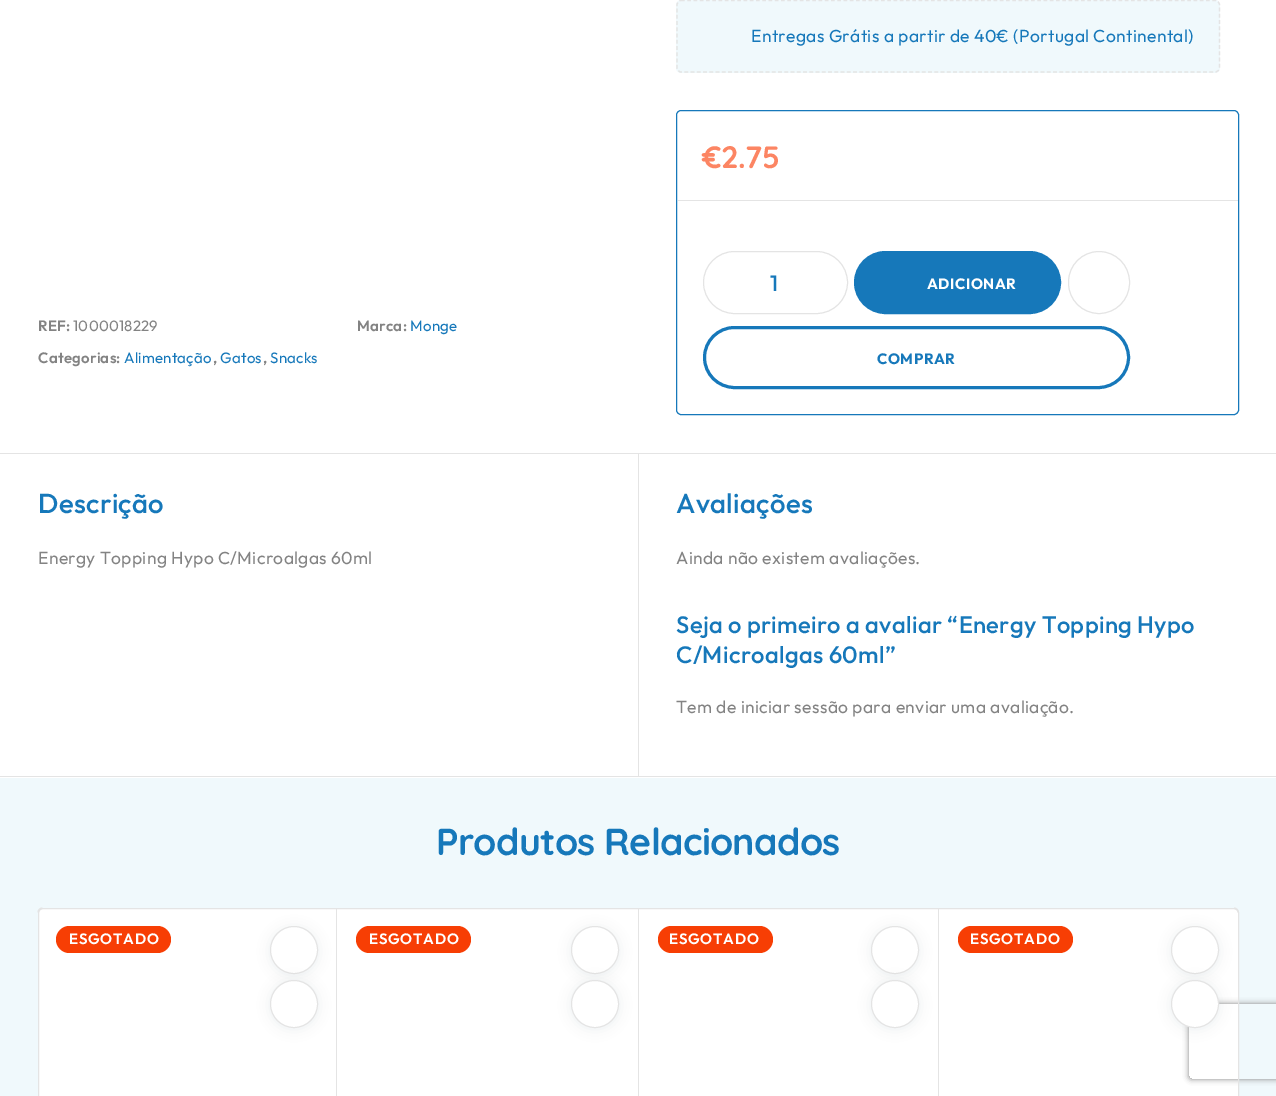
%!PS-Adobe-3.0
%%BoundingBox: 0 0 1276 1096
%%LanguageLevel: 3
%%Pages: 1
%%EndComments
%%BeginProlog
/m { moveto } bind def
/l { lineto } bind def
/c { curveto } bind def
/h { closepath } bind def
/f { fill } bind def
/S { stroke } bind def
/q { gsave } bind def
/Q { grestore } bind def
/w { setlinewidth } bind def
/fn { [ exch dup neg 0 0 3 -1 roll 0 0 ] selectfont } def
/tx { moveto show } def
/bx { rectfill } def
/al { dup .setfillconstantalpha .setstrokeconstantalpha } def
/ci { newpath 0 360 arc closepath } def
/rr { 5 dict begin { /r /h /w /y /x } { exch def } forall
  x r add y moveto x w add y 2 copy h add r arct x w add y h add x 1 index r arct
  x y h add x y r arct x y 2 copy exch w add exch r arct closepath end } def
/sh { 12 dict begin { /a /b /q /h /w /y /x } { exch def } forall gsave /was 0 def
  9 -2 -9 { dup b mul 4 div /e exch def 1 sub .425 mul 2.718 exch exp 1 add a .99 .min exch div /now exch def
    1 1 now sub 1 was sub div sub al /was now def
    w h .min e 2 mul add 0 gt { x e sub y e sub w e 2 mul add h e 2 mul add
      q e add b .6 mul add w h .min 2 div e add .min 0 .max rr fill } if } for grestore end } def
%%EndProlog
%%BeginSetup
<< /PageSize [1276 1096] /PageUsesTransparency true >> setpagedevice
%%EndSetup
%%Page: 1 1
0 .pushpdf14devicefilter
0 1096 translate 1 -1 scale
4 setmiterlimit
0.941 0.976 0.988 setrgbcolor
0 0 1276 1096 bx
1 setgray
0 0 1276 778 bx
0.894 setgray
0 776 1276 1 bx
/Outfit-SemiBold 15 fn
0.514 setgray
38 331 m 0.25 0 (REF:) ashow
/Outfit-Regular 15 fn
73 331 m 0.25 0 (1000018229) ashow
/Outfit-SemiBold 15 fn
357 331 m 0.25 0 (Marca:) ashow
/Outfit-Regular 15 fn
0.086 0.471 0.729 setrgbcolor
410 331 m 0.25 0 (Monge) ashow
/Outfit-SemiBold 15 fn
0.514 setgray
38 363 m 0.25 0 (Categorias:) ashow
/Outfit-Regular 15 fn
0.086 0.471 0.729 setrgbcolor
124 363 m 0.25 0 (Alimentação) ashow
/Outfit-SemiBold 15 fn
0.514 setgray
213 363 m 0.25 0 (,) ashow
/Outfit-Regular 15 fn
0.086 0.471 0.729 setrgbcolor
220 363 m 0.25 0 (Gatos) ashow
/Outfit-SemiBold 15 fn
0.514 setgray
263 363 m 0.25 0 (,) ashow
/Outfit-Regular 15 fn
0.086 0.471 0.729 setrgbcolor
270 363 m 0.25 0 (Snacks) ashow
0.941 0.976 0.988 setrgbcolor
676 0 544 73 5 rr f
0.894 setgray
1.2 w
[3.75 2.5] 0 setdash
681 0.5 m 1215 0.5 l 1217.5 0.5 1219.5 2.5 1219.5 5 c 1219.5 67.5 l 1219.5 70 1217.5 72 1215 72 c 681 72 l 679 72 677 70 677 67.5 c 677 5 l 677 2.5 679 0.5 681 0.5 c h S
/Outfit-Regular 17.5 fn
0.086 0.471 0.729 setrgbcolor
751 42 m 0.35 0 (Entregas Grátis a partir de 40€ \(Portugal Continental\)) ashow
1 w
[] 0 setdash
676.5 110.5 562 304 4.5 rr S
/Quicksand-Bold 31 fn
0.988 0.522 0.388 setrgbcolor
702 168 m -0.5 0 (€2.75) ashow
0.894 setgray
678 200 560 1 bx
703.5 251.5 144 62 31 rr S
/Outfit-Medium 22 fn
0.086 0.471 0.729 setrgbcolor
(1) 770 291 tx
855.5 252.5 204 60 30 rr q f Q
3 w
S
/Outfit-Bold 15 fn
1 setgray
927 289 m 0.5 0 (ADICIONAR) ashow
0.894 setgray
1 w
1068.5 251.5 61 62 30.5 rr S
0.086 0.471 0.729 setrgbcolor
3 w
704.5 327.5 424 60 30 rr S
877 364 m 0.5 0 (COMPRAR) ashow
0.894 setgray
0 453 1276 1 bx
638 454 1 322 bx
/Outfit-Medium 27.5 fn
0.086 0.471 0.729 setrgbcolor
38 513 m 0.35 0 (Descrição) ashow
/Outfit-Regular 17.5 fn
0.514 setgray
38 564 m 0.35 0 (Energy Topping Hypo C/Microalgas 60ml) ashow
/Outfit-Medium 27.5 fn
0.086 0.471 0.729 setrgbcolor
676 513 m 0.35 0 (Avaliações) ashow
/Outfit-Regular 17.5 fn
0.514 setgray
676 564 m 0.35 0 (Ainda não existem avaliações.) ashow
/Outfit-Medium 23.75 fn
0.086 0.471 0.729 setrgbcolor
676 633 m 0.35 0 (Seja o primeiro a avaliar “Energy Topping Hypo) ashow
676 663 m 0.35 0 (C/Microalgas 60ml”) ashow
/Outfit-Regular 17.5 fn
0.514 setgray
676 713 m 0.35 0 (Tem de iniciar sessão para enviar uma avaliação.) ashow
/Quicksand-Bold 37.5 fn
0.086 0.471 0.729 setrgbcolor
436 855 m -0.75 0 (Produtos Relacionados) ashow
1 setgray
38 908 1201 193 5 rr f
43 908 m 336 908 l 336 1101 l 38 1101 l 38 913 l 38 910 40 908 43 908 c h f
0.894 setgray
42.5 907.5 m 42.5 912.5 l 37.5 912.5 l 37.5 909.5 39.5 907.5 42.5 907.5 c h 42.5 909 m 42.5 912.5 l 39 912.5 l 39 910.5 40.5 909 42.5 909 c h eofill
q
38 908 1201 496 5 rr clip newpath
1 setgray
939 908 299 188 bx
Q
1234 907.5 m 1236.5 907.5 1239 909.5 1239 912.5 c 1234 912.5 l h 1234 909 m 1236 909 1237.5 910.5 1237.5 912.5 c 1234 912.5 l h eofill
336 908 1 188 bx
0.047 0.173 0.361 setrgbcolor
270 928 48 47 23.5 6 0.07 sh
1 setgray
294 950 23.5 ci q f Q
0.894 setgray
1 w
S
0.047 0.173 0.361 setrgbcolor
270 981 48 48 24 6 0.07 sh
1 setgray
294 1004 23.5 ci q f Q
0.894 setgray
S
0.969 0.243 0.016 setrgbcolor
56 926 115 27 13.5 rr f
0.894 setgray
638 908 1 188 bx
0.969 0.243 0.016 setrgbcolor
356 926 115 27 13.5 rr f
0.047 0.173 0.361 setrgbcolor
571 928 48 47 23.5 6 0.07 sh
1 setgray
595 950 23.5 ci q f Q
0.894 setgray
S
0.047 0.173 0.361 setrgbcolor
571 981 48 48 24 6 0.07 sh
1 setgray
595 1004 23.5 ci q f Q
0.894 setgray
S
938 908 1 188 bx
0.969 0.243 0.016 setrgbcolor
658 926 115 27 13.5 rr f
0.047 0.173 0.361 setrgbcolor
871 928 48 47 23.5 6 0.07 sh
1 setgray
895 950 23.5 ci q f Q
0.894 setgray
S
0.047 0.173 0.361 setrgbcolor
871 981 48 48 24 6 0.07 sh
1 setgray
895 1004 23.5 ci q f Q
0.894 setgray
S
0.047 0.173 0.361 setrgbcolor
1171 928 48 47 23.5 6 0.07 sh
1 setgray
1195 950 23.5 ci q f Q
0.894 setgray
S
0.047 0.173 0.361 setrgbcolor
1171 981 48 48 24 6 0.07 sh
q
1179 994 m 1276 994 l 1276 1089 l 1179 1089 l h 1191.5 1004 m 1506.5 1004 l 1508 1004 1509 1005 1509 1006.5 c 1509 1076.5 l 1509 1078 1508 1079 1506.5 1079 c 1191.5 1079 l 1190 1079 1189 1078 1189 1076.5 c 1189 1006.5 l 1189 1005 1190 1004 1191.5 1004 c h eoclip newpath
0.502 setgray
1189 1004 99 75 2.5 3 1 sh
Q
1 setgray
1195 1004 23.5 ci q f Q
0.894 setgray
S
0.969 0.243 0.016 setrgbcolor
958 926 115 27 13.5 rr f
0.894 setgray
38.5 908.5 1200 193 4.5 rr S
/Outfit-SemiBold 15 fn
1 setgray
69 944 m 0.75 0 (ESGOTADO) ashow
369 944 m 0.75 0 (ESGOTADO) ashow
669 944 m 0.75 0 (ESGOTADO) ashow
970 944 m 0.75 0 (ESGOTADO) ashow
.poppdf14devicefilter showpage
%%EOF
